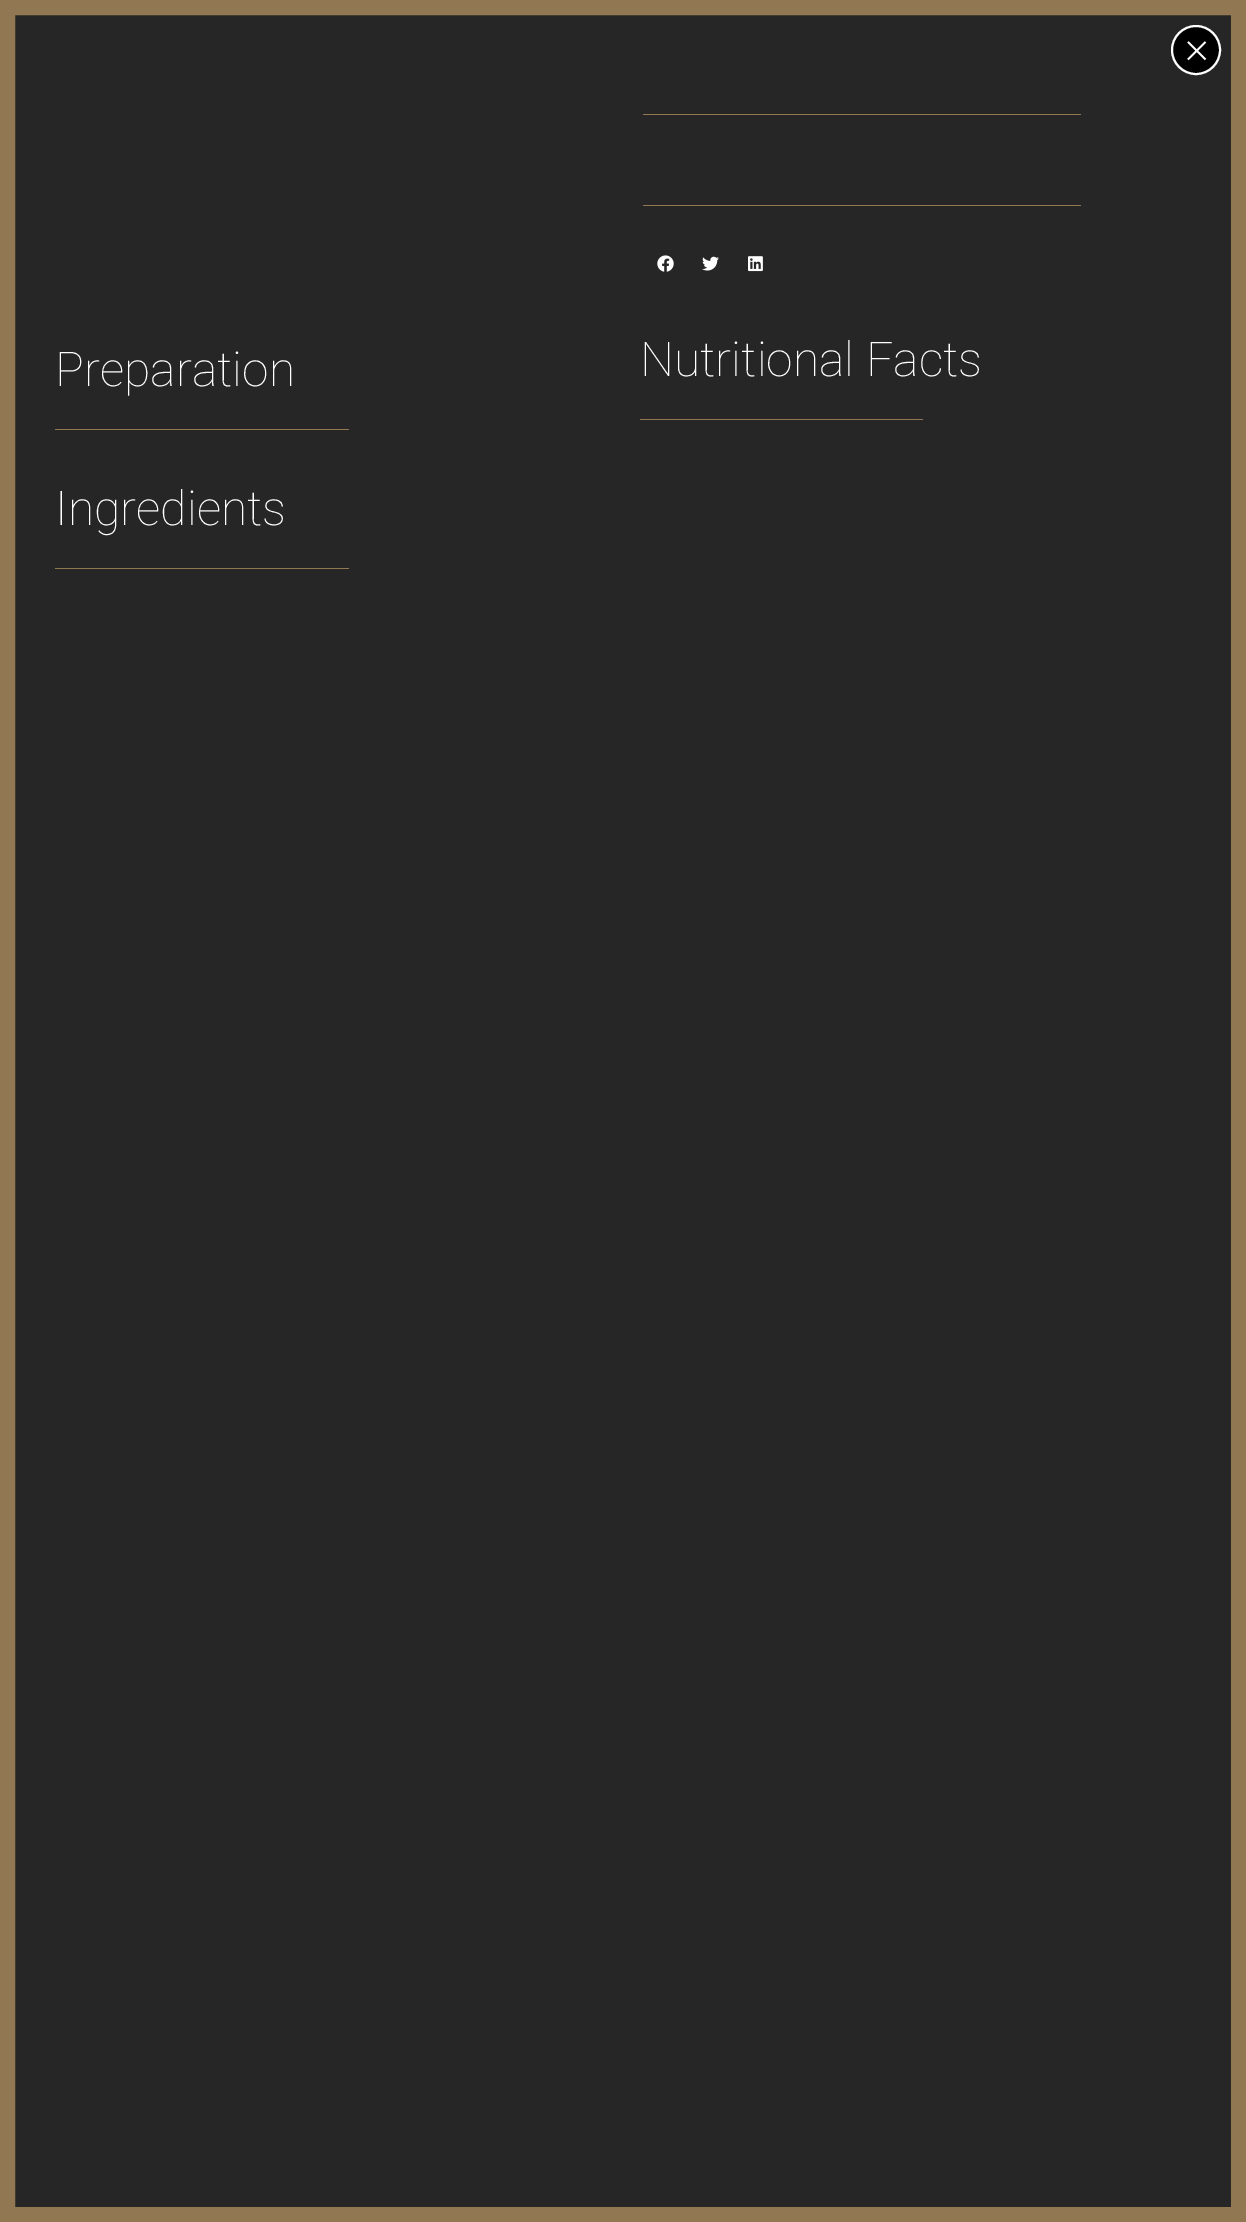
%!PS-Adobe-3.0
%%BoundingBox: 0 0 1246 2222
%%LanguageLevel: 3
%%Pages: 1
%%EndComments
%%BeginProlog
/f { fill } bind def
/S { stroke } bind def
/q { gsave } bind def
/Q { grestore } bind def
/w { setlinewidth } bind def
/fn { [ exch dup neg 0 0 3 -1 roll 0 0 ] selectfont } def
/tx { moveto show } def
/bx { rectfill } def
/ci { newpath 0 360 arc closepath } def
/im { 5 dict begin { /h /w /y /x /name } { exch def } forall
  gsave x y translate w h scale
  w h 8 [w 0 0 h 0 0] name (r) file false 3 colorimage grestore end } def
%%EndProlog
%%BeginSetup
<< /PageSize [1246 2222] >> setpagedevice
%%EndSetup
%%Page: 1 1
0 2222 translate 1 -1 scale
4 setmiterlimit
0.149 setgray
0 0 1246 2222 bx
0.569 0.471 0.322 setrgbcolor
15 w
7.5 7.5 1231 2207 rectstroke
0 setgray
1196 50 24 ci q f Q
1 setgray
2 w
S
(image0.raw) 1187 41 20 20 im
0.569 0.471 0.322 setrgbcolor
643 114 438 1 bx
643 205 438 1 bx
(image1.raw) 657 255 17 17 im
(image2.raw) 702 256 17 15 im
(image3.raw) 748 256 15 16 im
/Roboto-Thin 48 fn
1 setgray
(Preparation) 55 386 tx
0.569 0.471 0.322 setrgbcolor
55 429 294 1 bx
1 setgray
(Ingredients) 55 525 tx
0.569 0.471 0.322 setrgbcolor
55 568 294 1 bx
1 setgray
(Nutritional Facts) 640 376 tx
0.569 0.471 0.322 setrgbcolor
640 419 283 1 bx
showpage
%%EOF
